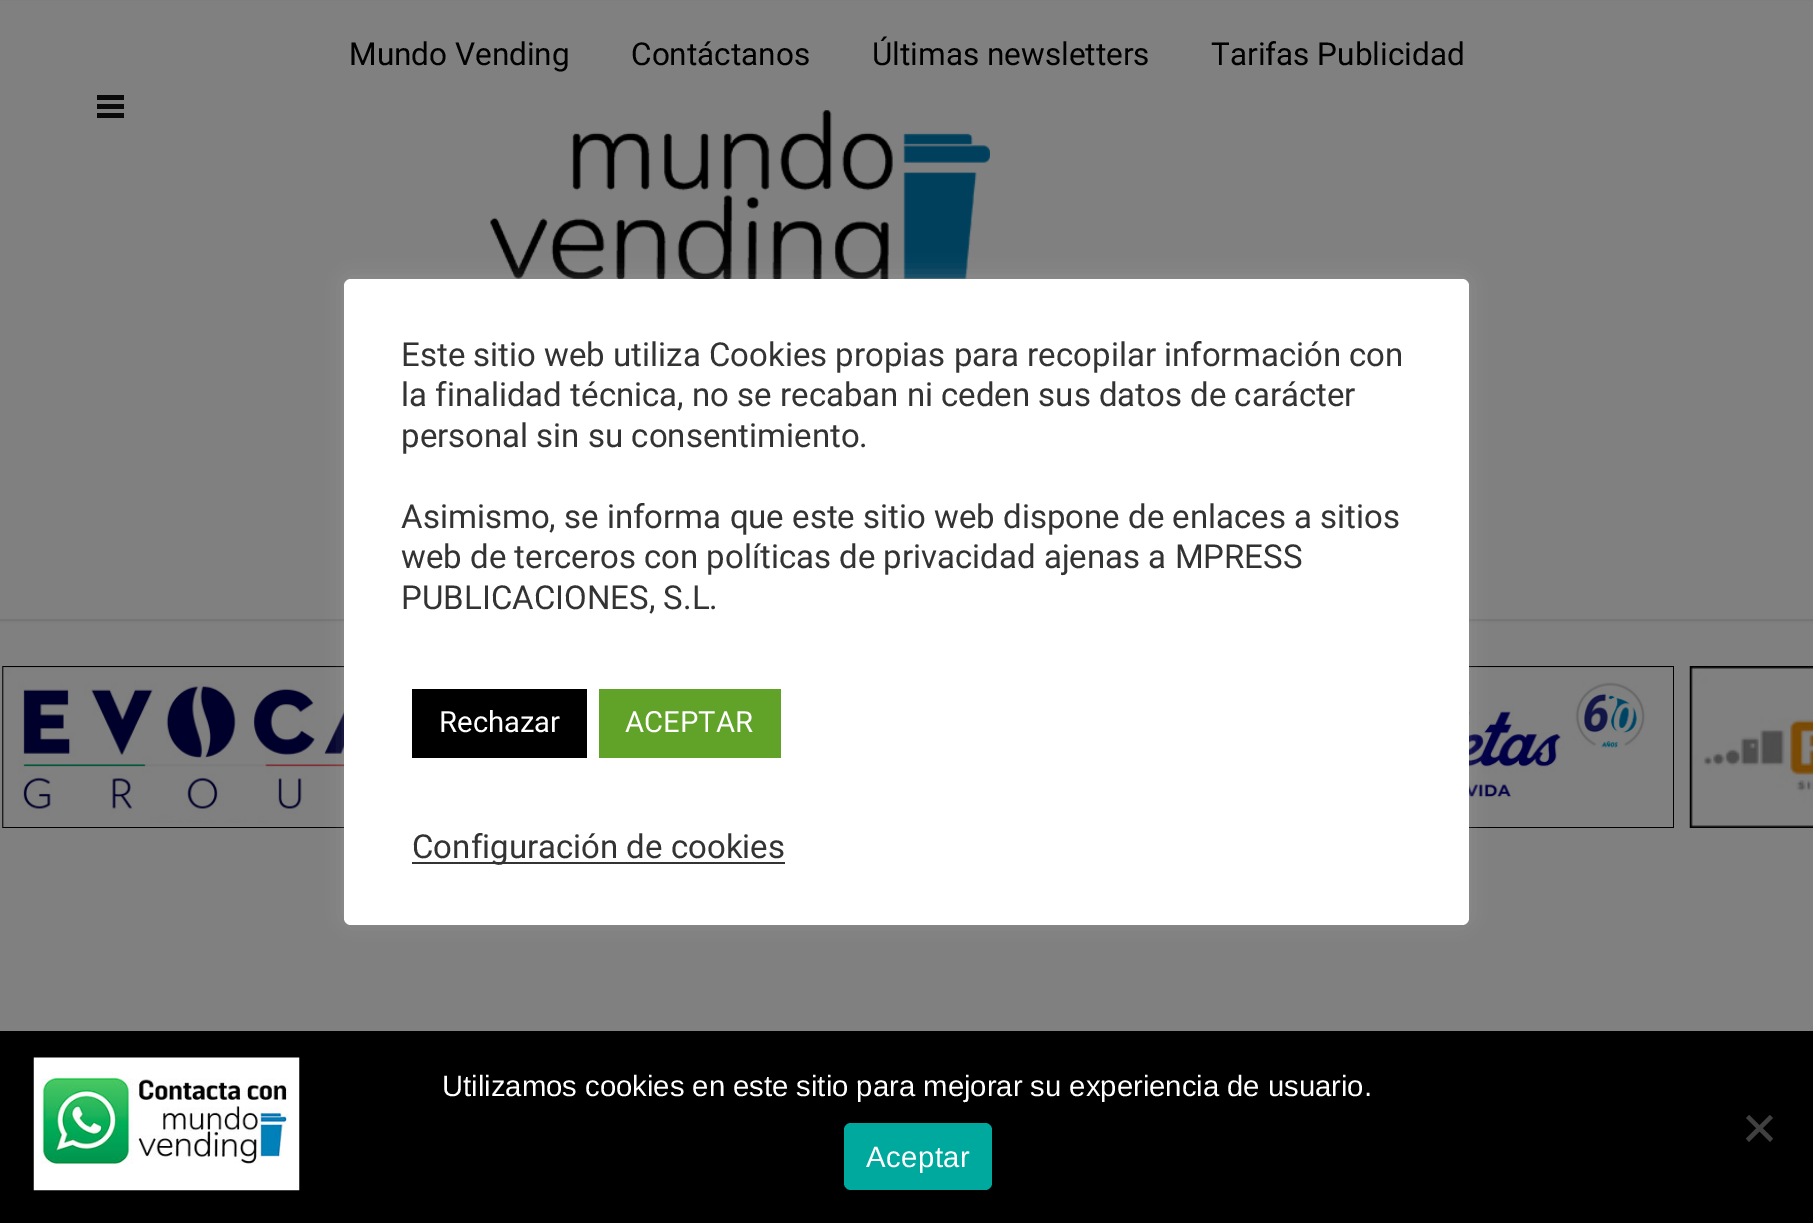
%!PS-Adobe-3.0
%%BoundingBox: 0 0 1813 1223
%%LanguageLevel: 3
%%Pages: 1
%%EndComments
%%BeginProlog
/m { moveto } bind def
/l { lineto } bind def
/h { closepath } bind def
/f { fill } bind def
/fn { [ exch dup neg 0 0 3 -1 roll 0 0 ] selectfont } def
/tx { moveto show } def
/bx { rectfill } def
/al { dup .setfillconstantalpha .setstrokeconstantalpha } def
/rr { 5 dict begin { /r /h /w /y /x } { exch def } forall
  x r add y moveto x w add y 2 copy h add r arct x w add y h add x 1 index r arct
  x y h add x y r arct x y 2 copy exch w add exch r arct closepath end } def
/sh { 12 dict begin { /a /b /q /h /w /y /x } { exch def } forall gsave /was 0 def
  9 -2 -9 { dup b mul 4 div /e exch def 1 sub .425 mul 2.718 exch exp 1 add a .99 .min exch div /now exch def
    1 1 now sub 1 was sub div sub al /was now def
    w h .min e 2 mul add 0 gt { x e sub y e sub w e 2 mul add h e 2 mul add
      q e add b .6 mul add w h .min 2 div e add .min 0 .max rr fill } if } for grestore end } def
/im { 5 dict begin { /h /w /y /x /name } { exch def } forall
  gsave x y translate w h scale
  w h 8 [w 0 0 h 0 0] name (r) file false 3 colorimage grestore end } def
%%EndProlog
%%BeginSetup
<< /PageSize [1813 1223] /PageUsesTransparency true >> setpagedevice
%%EndSetup
%%Page: 1 1
0 .pushpdf14devicefilter
0 1223 translate 1 -1 scale
4 setmiterlimit
0.502 setgray
0 0 1813 1223 bx
0.459 setgray
0 619 1813 2 bx
0 2 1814 619 0 2 1 sh
0.502 setgray
0 1 1813 618 bx
/Roboto-Regular 31.5 fn
0 setgray
(Mundo Vending) 349 65 tx
(Contáctanos) 631 65 tx
(Últimas newsletters) 872 65 tx
(Tarifas Publicidad) 1211 65 tx
0.035 setgray
97 95 27 5 bx
97 104 27 5 bx
97 113 27 5 bx
(image0.raw) 490 110 500 169 im
(image1.raw) 2 666 342 162 im
(image2.raw) 1469 666 205 162 im
(image3.raw) 1689 666 124 162 im
0.675 0.671 0.671 setrgbcolor
344 277 1125 646 7 11 0.3 sh
1 setgray
344 279 1125 646 7 rr f
/Roboto-Regular 33 fn
0.2 setgray
(Este sitio web utiliza Cookies propias para recopilar información con) 401 366 tx
(la finalidad técnica, no se recaban ni ceden sus datos de carácter) 401 406 tx
(personal sin su consentimiento.) 401 447 tx
(Asimismo, se informa que este sitio web dispone de enlaces a sitios) 401 528 tx
(web de terceros con políticas de privacidad ajenas a MPRESS) 401 568 tx
(PUBLICACIONES, S.L.) 401 609 tx
0 setgray
412 689 175 69 bx
/Roboto-Regular 29.25 fn
1 setgray
(Rechazar) 439 732 tx
0.38 0.635 0.161 setrgbcolor
599 689 182 69 bx
1 setgray
(ACEPTAR) 625 732 tx
0.2 setgray
412 862 373 2 bx
/Roboto-Regular 33 fn
(Configuración de cookies) 412 858 tx
0 setgray
0 1031 1813 192 bx
(image4.raw) 33 1057 267 134 im
/LiberationSans-Regular 29.25 fn
1 setgray
(Utilizamos cookies en este sitio para mejorar su experiencia de usuario.) 442 1096 tx
0.251 setgray
1770 1115 m 1773 1118 l 1749 1142 l 1746 1138.5 l h f
1746 1118 m 1749 1115 l 1773 1138.5 l 1770 1142 l h f
0 0.663 0.616 setrgbcolor
844 1123 148 67 7 rr f
1 setgray
866 1167 m 0.5 0 (Aceptar) ashow
.poppdf14devicefilter showpage
%%EOF
